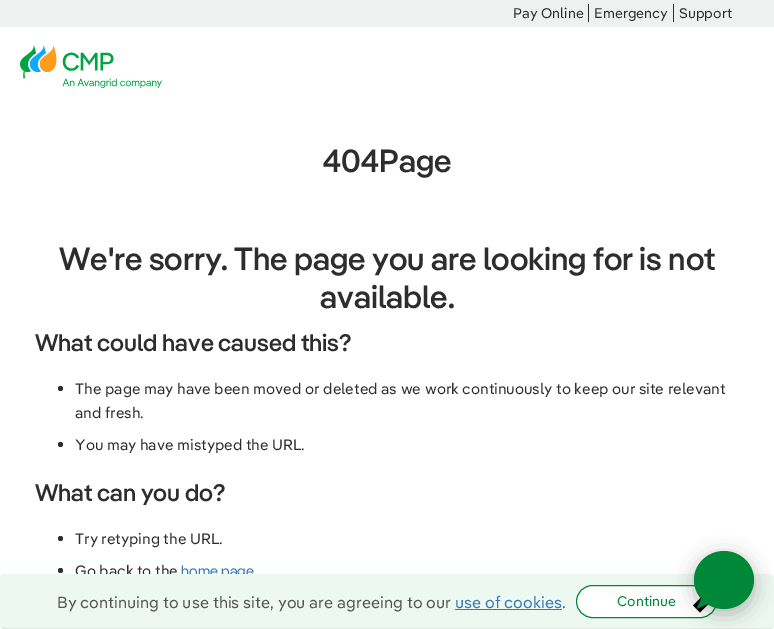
%!PS-Adobe-3.0
%%BoundingBox: 0 0 774 629
%%LanguageLevel: 3
%%Pages: 1
%%EndComments
%%BeginProlog
/m { moveto } bind def
/l { lineto } bind def
/c { curveto } bind def
/h { closepath } bind def
/f { fill } bind def
/S { stroke } bind def
/q { gsave } bind def
/Q { grestore } bind def
/fn { [ exch dup neg 0 0 3 -1 roll 0 0 ] selectfont } def
/tx { moveto show } def
/bx { rectfill } def
/al { dup .setfillconstantalpha .setstrokeconstantalpha } def
/ci { newpath 0 360 arc closepath } def
/rr { 5 dict begin { /r /h /w /y /x } { exch def } forall
  x r add y moveto x w add y 2 copy h add r arct x w add y h add x 1 index r arct
  x y h add x y r arct x y 2 copy exch w add exch r arct closepath end } def
/sh { 12 dict begin { /a /b /q /h /w /y /x } { exch def } forall gsave /was 0 def
  9 -2 -9 { dup b mul 4 div /e exch def 1 sub .425 mul 2.718 exch exp 1 add a .99 .min exch div /now exch def
    1 1 now sub 1 was sub div sub al /was now def
    w h .min e 2 mul add 0 gt { x e sub y e sub w e 2 mul add h e 2 mul add
      q e add b .6 mul add w h .min 2 div e add .min 0 .max rr fill } if } for grestore end } def
/im { 5 dict begin { /h /w /y /x /name } { exch def } forall
  gsave x y translate w h scale
  w h 8 [w 0 0 h 0 0] name (r) file false 3 colorimage grestore end } def
%%EndProlog
%%BeginSetup
<< /PageSize [774 629] /PageUsesTransparency true >> setpagedevice
%%EndSetup
%%Page: 1 1
0 .pushpdf14devicefilter
0 629 translate 1 -1 scale
4 setmiterlimit
1 setgray
0 0 774 629 bx
0.937 0.941 0.941 setrgbcolor
0 0 774 27 bx
/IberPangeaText-Regular 14 fn
0.176 setgray
(Pay Online) 513 18 tx
588 4 1 18 bx
(Emergency) 594 18 tx
673 4 1 18 bx
(Support) 679 18 tx
(image0.raw) 20 45 142 43 im
/IberPangeaText-Regular 15 fn
(Go back to the) 75 576 tx
/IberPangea-Regular 15 fn
0.2 0.478 0.718 setrgbcolor
(home page) 181 576 tx
0.929 0.973 0.941 setrgbcolor
0 574 774 55 4 rr f
0.894 setgray
772.5 627.5 m 770 628.5 l 4 628.5 l 1.5 627.5 l S
/IberPangeaText-Regular 16 fn
0.333 setgray
(By continuing to use this site, you are agreeing to our) 57 608 tx
0.2 0.478 0.718 setrgbcolor
(use of cookies) 455 608 tx
455 609 107 1 bx
0.333 setgray
(.) 562 608 tx
1 setgray
576.5 585.5 140 32 16 rr q f Q
0 0.529 0.216 setrgbcolor
S
/IberPangeaText-Regular 14 fn
(Continue) 617 606 tx
/IberPangea-Medium 32 fn
0.176 setgray
(404Page) 323 172 tx
(We're sorry. The page you are looking for is not) 59 270 tx
(available.) 320 308 tx
/IberPangea-Medium 24 fn
(What could have caused this?) 35 351 tx
60.5 388.5 2.5 ci f
/IberPangeaText-Regular 15 fn
(The page may have been moved or deleted as we work continuously to keep our site relevant) 75 394 tx
(and fresh.) 75 418 tx
60.5 444.5 2.5 ci f
(You may have mistyped the URL.) 75 450 tx
/IberPangea-Medium 24 fn
(What can you do?) 35 501 tx
60.5 538.5 2.5 ci f
/IberPangeaText-Regular 15 fn
(Try retyping the URL.) 75 544 tx
60.5 570.5 2.5 ci f
0 setgray
694 556 60 58 29 10 0.25 sh
0 0.529 0.216 setrgbcolor
724 551 m 740.5 551 754 564 754 580 c 754 596 740.5 609 724 609 c 707.5 609 694 596 694 580 c 694 564 707.5 551 724 551 c h f
701.5 597 m 708.5 604 l 696.5 609 l h f
0 setgray
708.5 604 m 700 612.5 l 696.5 609 l h f
693 605.5 m 701.5 597 l 696.5 609 l h f
.poppdf14devicefilter showpage
%%EOF
